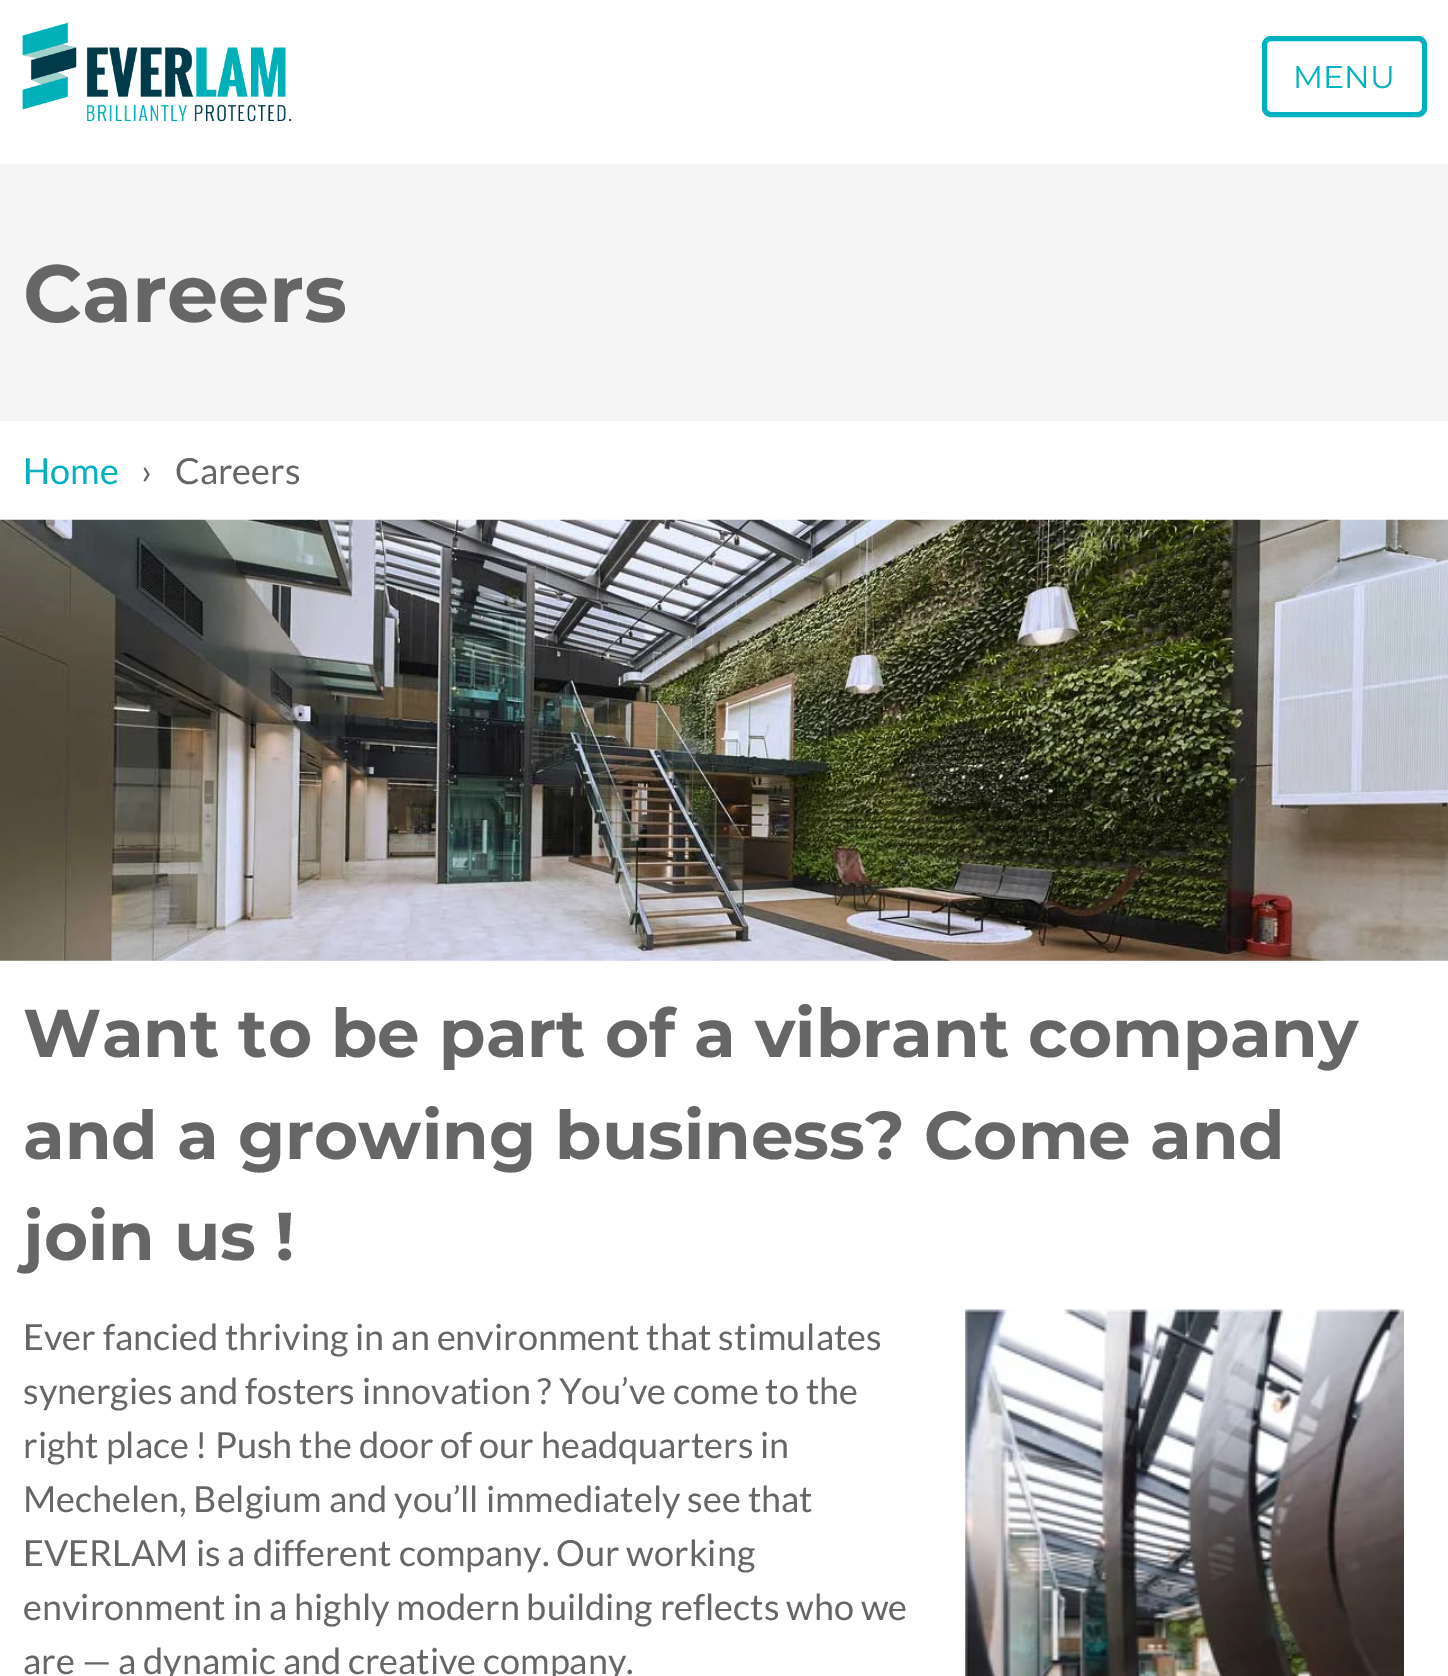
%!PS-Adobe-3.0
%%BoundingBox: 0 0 1448 1676
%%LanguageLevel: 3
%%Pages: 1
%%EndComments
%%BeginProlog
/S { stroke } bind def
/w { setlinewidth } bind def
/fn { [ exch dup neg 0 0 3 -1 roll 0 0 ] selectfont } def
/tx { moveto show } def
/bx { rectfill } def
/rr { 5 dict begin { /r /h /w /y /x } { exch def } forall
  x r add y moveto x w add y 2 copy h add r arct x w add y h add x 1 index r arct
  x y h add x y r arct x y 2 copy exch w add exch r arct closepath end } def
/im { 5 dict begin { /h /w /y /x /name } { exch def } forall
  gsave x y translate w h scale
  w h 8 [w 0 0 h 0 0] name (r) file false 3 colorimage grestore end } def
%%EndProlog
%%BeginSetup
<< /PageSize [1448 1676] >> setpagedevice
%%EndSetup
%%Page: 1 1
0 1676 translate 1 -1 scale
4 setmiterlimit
1 setgray
0 0 1448 1676 bx
(image0.raw) 22 22 270 100 im
0 0.698 0.749 setrgbcolor
5 w
1264.5 38.5 160 76 6.5 rr S
/Montserrat-Regular 31.5 fn
(MENU) 1293 88 tx
0.961 setgray
0 164 1448 257 bx
/Montserrat-Thin 81 fn
0.4 setgray
(Careers) 23 322 tx
/Lato-Regular 36 fn
0 0.698 0.749 setrgbcolor
(Home) 23 484 tx
0.4 setgray
(›) 141 484 tx
(Careers) 175 484 tx
(image1.raw) 0 519 1448 442 im
/Montserrat-Thin 67.5 fn
(Want to be part of a vibrant company) 23 1057 tx
(and a growing business? Come and) 23 1159 tx
(join us !) 23 1260 tx
/Lato-Regular 36 fn
(Ever fancied thriving in an environment that stimulates) 23 1350 tx
(image2.raw) 965 1309 439 367 im
(synergies and fosters innovation ? You’ve come to the) 23 1404 tx
(right place ! Push the door of our headquarters in) 23 1458 tx
(Mechelen, Belgium and you’ll immediately see that) 23 1512 tx
(EVERLAM is a different company. Our working) 23 1566 tx
(environment in a highly modern building reflects who we) 23 1620 tx
(are — a dynamic and creative company.) 23 1674 tx
showpage
%%EOF
